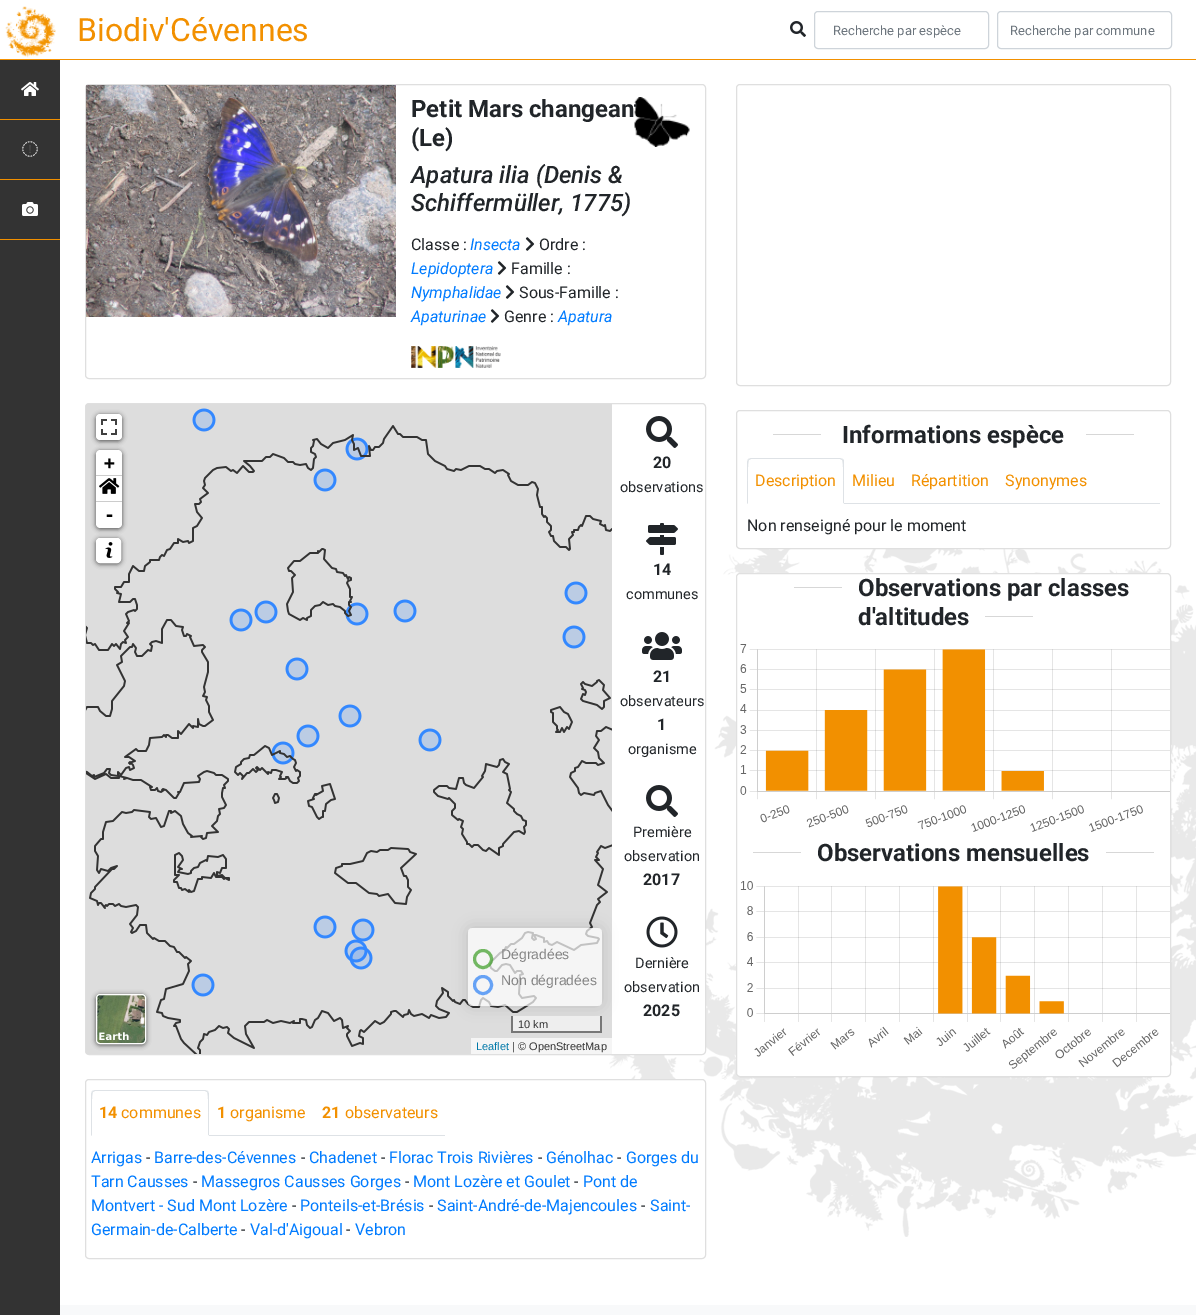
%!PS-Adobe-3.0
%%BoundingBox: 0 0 1196 1315
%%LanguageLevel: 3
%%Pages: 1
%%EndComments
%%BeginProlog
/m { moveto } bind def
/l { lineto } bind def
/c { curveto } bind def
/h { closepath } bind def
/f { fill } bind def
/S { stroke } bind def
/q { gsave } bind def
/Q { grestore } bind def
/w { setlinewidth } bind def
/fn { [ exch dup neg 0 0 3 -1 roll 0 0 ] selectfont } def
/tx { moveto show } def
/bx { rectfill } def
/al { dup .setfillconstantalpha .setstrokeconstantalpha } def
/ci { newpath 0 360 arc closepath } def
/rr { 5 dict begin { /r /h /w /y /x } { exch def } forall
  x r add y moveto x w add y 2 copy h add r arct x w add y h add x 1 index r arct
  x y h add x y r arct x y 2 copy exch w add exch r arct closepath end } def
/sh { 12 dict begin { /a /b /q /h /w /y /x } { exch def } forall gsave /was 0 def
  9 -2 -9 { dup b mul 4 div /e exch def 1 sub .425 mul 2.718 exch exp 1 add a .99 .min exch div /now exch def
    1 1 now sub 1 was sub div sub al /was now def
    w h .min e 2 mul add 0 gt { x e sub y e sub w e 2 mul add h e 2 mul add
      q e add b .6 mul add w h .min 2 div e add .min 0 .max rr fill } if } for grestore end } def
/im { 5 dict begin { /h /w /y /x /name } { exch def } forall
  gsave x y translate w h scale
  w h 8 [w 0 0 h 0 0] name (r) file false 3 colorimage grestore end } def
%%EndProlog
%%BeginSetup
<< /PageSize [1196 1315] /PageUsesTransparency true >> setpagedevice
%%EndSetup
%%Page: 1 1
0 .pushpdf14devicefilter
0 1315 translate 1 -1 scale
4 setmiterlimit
1 setgray
0 0 1196 1315 bx
(image0.raw) 609 549 587 688 im
0.949 0.565 0 setrgbcolor
0 59 1196 1 bx
(image1.raw) 5 6 51 52 im
/Roboto-Regular 32 fn
(Biodiv'Cévennes) 77 41 tx
(image2.raw) 790 21 16 16 im
0.808 0.831 0.855 setrgbcolor
814.5 11.5 174 37 3.5 rr S
/Roboto-Regular 13 fn
0.424 0.459 0.49 setrgbcolor
(Recherche par espèce) 833 35 tx
0.808 0.831 0.855 setrgbcolor
997.5 11.5 174 37 3.5 rr S
0.424 0.459 0.49 setrgbcolor
(Recherche par commune) 1010 35 tx
0.2 setgray
0 60 60 1255 bx
0.949 0.565 0 setrgbcolor
0 119 60 1 bx
(image3.raw) 21 82 18 14 im
0 179 60 1 bx
(image4.raw) 22 141 16 16 im
0 239 60 1 bx
(image5.raw) 22 202 16 14 im
0.875 setgray
85.5 84.5 620 294 3.5 rr S
(image6.raw) 86 85 310 232 im
/Roboto-Bold 24 fn
0.129 0.145 0.161 setrgbcolor
(Petit Mars changean) 411 117 tx
(\(Le\)) 411 146 tx
/Roboto-MediumItalic 24 fn
(Apatura ilia \(Denis &) 411 183 tx
(Schiffermüller, 1775\)) 411 211 tx
/Roboto-Regular 16 fn
(Classe :) 411 250 tx
/Roboto-Italic 16 fn
0 0.482 1 setrgbcolor
(Insecta) 470 250 tx
(image7.raw) 525 237 10 14 im
/Roboto-Regular 16 fn
0.129 0.145 0.161 setrgbcolor
(Ordre :) 539 250 tx
/Roboto-Italic 16 fn
0 0.482 1 setrgbcolor
(Lepidoptera) 411 274 tx
(image7.raw) 497 261 10 14 im
/Roboto-Regular 16 fn
0.129 0.145 0.161 setrgbcolor
(Famille :) 511 274 tx
/Roboto-Italic 16 fn
0 0.482 1 setrgbcolor
(Nymphalidae) 411 298 tx
(image7.raw) 505 285 10 14 im
/Roboto-Regular 16 fn
0.129 0.145 0.161 setrgbcolor
(Sous-Famille :) 519 298 tx
/Roboto-Italic 16 fn
0 0.482 1 setrgbcolor
(Apaturinae) 411 322 tx
(image7.raw) 490 309 10 14 im
/Roboto-Regular 16 fn
0.129 0.145 0.161 setrgbcolor
(Genre :) 504 322 tx
/Roboto-Italic 16 fn
0 0.482 1 setrgbcolor
(Apatura) 558 322 tx
(image8.raw) 411 346 90 22 im
(image9.raw) 634 97 56 50 im
1 setgray
85.5 403.5 620 651 3.5 rr q f Q
0.875 setgray
S
0.867 setgray
86 404 526 650 bx
(image10.raw) 86 408 526 646 im
0 setgray
96 415 26 26 4 2.5 0.65 sh
1 setgray
96 414 26 26 4 rr f
(image11.raw) 101 419 16 16 im
0 setgray
96 451 26 78 4 2.5 0.65 sh
1 setgray
100 450 m 118 450 l 120 450 122 452 122 454 c 122 476 l 96 476 l 96 454 l 96 452 98 450 100 450 c h f
0.8 setgray
96 475 26 1 bx
/DejaVuSansMono-Bold 18 fn
0 setgray
(+) 104 469 tx
1 setgray
96 476 26 25 bx
0.8 setgray
96 501 26 1 bx
(image12.raw) 99 478 21 16 im
1 setgray
96 502 m 122 502 l 122 524 l 122 526 120 528 118 528 c 100 528 l 98 528 96 526 96 524 c h f
0 setgray
(-) 104 521 tx
96 539 25 25 4 2.5 0.65 sh
1 setgray
96.5 538.5 24 24 3.5 rr q f Q
S
(image13.raw) 105 542 8 16 im
0 setgray
96 995 50 50 4 2.5 0.65 sh
(image14.raw) 96 994 50 50 im
1 setgray
96.5 994.5 49 49 3.5 rr S
q
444 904 m 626 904 l 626 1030 l 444 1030 l h 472 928 m 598 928 l 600 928 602 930 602 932 c 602 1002 l 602 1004 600 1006 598 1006 c 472 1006 l 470 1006 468 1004 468 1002 c 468 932 l 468 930 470 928 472 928 c h eoclip newpath
0 setgray
468 928 134 78 4 7.5 0.14 sh
Q
0.7 al
468 928 134 78 4 rr f
0.227 0.616 0.137 setrgbcolor
3 w
483 959 8.5 ci S
/LiberationSans-Regular 14 fn
1 al
0.522 setgray
(Dégradées) 501 959 tx
0.4 0.635 0.961 setrgbcolor
483 985 8.5 ci S
0.522 setgray
(Non dégradées) 501 985 tx
0.933 setgray
513 1016 87 15 bx
0.467 setgray
600 1016 2 17 bx
511 1031 91 2 bx
511 1016 2 17 bx
/LiberationSans-Regular 11 fn
0.2 setgray
(10 km) 518 1028 tx
0.961 setgray
471 1038 141 16 bx
0 0.471 0.659 setrgbcolor
(Leaflet) 476 1050 tx
0.2 setgray
(| © OpenStreetMap) 512 1050 tx
(image15.raw) 646 416 32 32 im
/Roboto-Bold 16 fn
0.129 0.145 0.161 setrgbcolor
(20) 653 468 tx
/Roboto-Regular 14.5 fn
(observations) 620 492 tx
(image16.raw) 646 523 32 32 im
/Roboto-Bold 16 fn
(14) 653 575 tx
/Roboto-Regular 14.5 fn
(communes) 626 599 tx
(image17.raw) 642 632 40 28 im
/Roboto-Bold 16 fn
(21) 653 682 tx
/Roboto-Regular 14.5 fn
(observateurs) 620 706 tx
/Roboto-Bold 16 fn
(1) 657 730 tx
/Roboto-Regular 14.5 fn
(organisme) 628 754 tx
(image15.raw) 646 785 32 32 im
(Première) 633 837 tx
(observation) 624 861 tx
/Roboto-Bold 16 fn
(2017) 643 885 tx
(image18.raw) 646 916 32 32 im
/Roboto-Regular 14.5 fn
(Dernière) 635 968 tx
(observation) 624 992 tx
/Roboto-Bold 16 fn
(2025) 643 1016 tx
1 setgray
85.5 1079.5 620 179 3.5 rr q f Q
0.875 setgray
1 w
S
0.871 0.886 0.902 setrgbcolor
209 1135 236 1 bx
95 1090 m 92 1091 l 93 1092 l 95 1091 l 205 1091 l 207 1092 l 208 1091 l 205 1090 l h f
209 1136 m 209 1094 l 209 1093 208 1092 208 1091 c 207 1092 l 209 1094 208 1130 208 1135 c h f
1 setgray
209 1136 m 208 1135 l 92 1135 l 91 1136 l h f
0.871 0.886 0.902 setrgbcolor
91 1136 m 92 1135 l 92 1130 91 1094 93 1092 c 92 1091 l 91 1094 l h f
0.949 0.565 0 setrgbcolor
(14) 99 1118 tx
/Roboto-Regular 16 fn
(communes) 121 1118 tx
/Roboto-Bold 16 fn
(1) 217 1118 tx
/Roboto-Regular 16 fn
(organisme) 230 1118 tx
/Roboto-Bold 16 fn
(21) 322 1118 tx
/Roboto-Regular 16 fn
(observateurs) 345 1118 tx
0 0.482 1 setrgbcolor
(Arrigas) 91 1163 tx
0.129 0.145 0.161 setrgbcolor
(-) 146 1163 tx
0 0.482 1 setrgbcolor
(Barre-des-Cévennes) 154 1163 tx
0.129 0.145 0.161 setrgbcolor
(-) 301 1163 tx
0 0.482 1 setrgbcolor
(Chadenet) 309 1163 tx
0.129 0.145 0.161 setrgbcolor
(-) 381 1163 tx
0 0.482 1 setrgbcolor
(Florac Trois Rivières) 389 1163 tx
0.129 0.145 0.161 setrgbcolor
(-) 538 1163 tx
0 0.482 1 setrgbcolor
(Génolhac) 546 1163 tx
0.129 0.145 0.161 setrgbcolor
(-) 617 1163 tx
0 0.482 1 setrgbcolor
(Gorges du) 626 1163 tx
(Tarn Causses) 91 1187 tx
0.129 0.145 0.161 setrgbcolor
(-) 193 1187 tx
0 0.482 1 setrgbcolor
(Massegros Causses Gorges) 201 1187 tx
0.129 0.145 0.161 setrgbcolor
(-) 405 1187 tx
0 0.482 1 setrgbcolor
(Mont Lozère et Goulet) 413 1187 tx
0.129 0.145 0.161 setrgbcolor
(-) 574 1187 tx
0 0.482 1 setrgbcolor
(Pont de) 583 1187 tx
(Montvert - Sud Mont Lozère) 91 1211 tx
0.129 0.145 0.161 setrgbcolor
(-) 292 1211 tx
0 0.482 1 setrgbcolor
(Ponteils-et-Brésis) 300 1211 tx
0.129 0.145 0.161 setrgbcolor
(-) 429 1211 tx
0 0.482 1 setrgbcolor
(Saint-André-de-Majencoules) 437 1211 tx
0.129 0.145 0.161 setrgbcolor
(-) 641 1211 tx
0 0.482 1 setrgbcolor
(Saint-) 650 1211 tx
(Germain-de-Calberte) 91 1235 tx
0.129 0.145 0.161 setrgbcolor
(-) 241 1235 tx
0 0.482 1 setrgbcolor
(Val-d'Aigoual) 250 1235 tx
0.129 0.145 0.161 setrgbcolor
(-) 346 1235 tx
0 0.482 1 setrgbcolor
(Vebron) 355 1235 tx
0.875 setgray
736.5 84.5 434 301 3.5 rr S
736.5 410.5 434 138 3.5 rr S
0.843 setgray
773 434 48 1 bx
/Roboto-Bold 24 fn
0.129 0.145 0.161 setrgbcolor
(Informations espèce) 842 443 tx
0.843 setgray
1086 434 48 1 bx
0.871 0.886 0.902 setrgbcolor
844 503 316 1 bx
751 458 m 748 459 l 749 460 l 751 459 l 840 459 l 842 460 l 843 459 l 840 458 l h f
844 504 m 844 462 l 844 461 844 460 843 459 c 842 460 l 844 462 843 498 843 503 c h f
1 setgray
844 504 m 843 503 l 748 503 l 747 504 l h f
0.871 0.886 0.902 setrgbcolor
747 504 m 748 503 l 748 498 747 462 749 460 c 748 459 l 747 462 l h f
/Roboto-Regular 16 fn
0.949 0.565 0 setrgbcolor
(Description) 755 486 tx
(Milieu) 852 486 tx
(Répartition) 911 486 tx
(Synonymes) 1005 486 tx
0.129 0.145 0.161 setrgbcolor
(Non renseigné pour le moment) 747 531 tx
1 setgray
736 573 435 504 4 rr f
0.12 al
0 setgray
736.5 573.5 434 503 3.5 rr S
1 al
0.843 setgray
794 587 48 1 bx
/Roboto-Bold 24 fn
0.129 0.145 0.161 setrgbcolor
(Observations par classes) 858 596 tx
(d'altitudes) 858 625 tx
0.843 setgray
985 616 48 1 bx
(image19.raw) 740 644 430 188 im
753 852 48 1 bx
0.129 0.145 0.161 setrgbcolor
(Observations mensuelles) 817 861 tx
0.843 setgray
1106 852 48 1 bx
(image20.raw) 740 881 430 188 im
0.973 0.976 0.98 setrgbcolor
60 1305 1136 10 bx
.poppdf14devicefilter showpage
%%EOF
